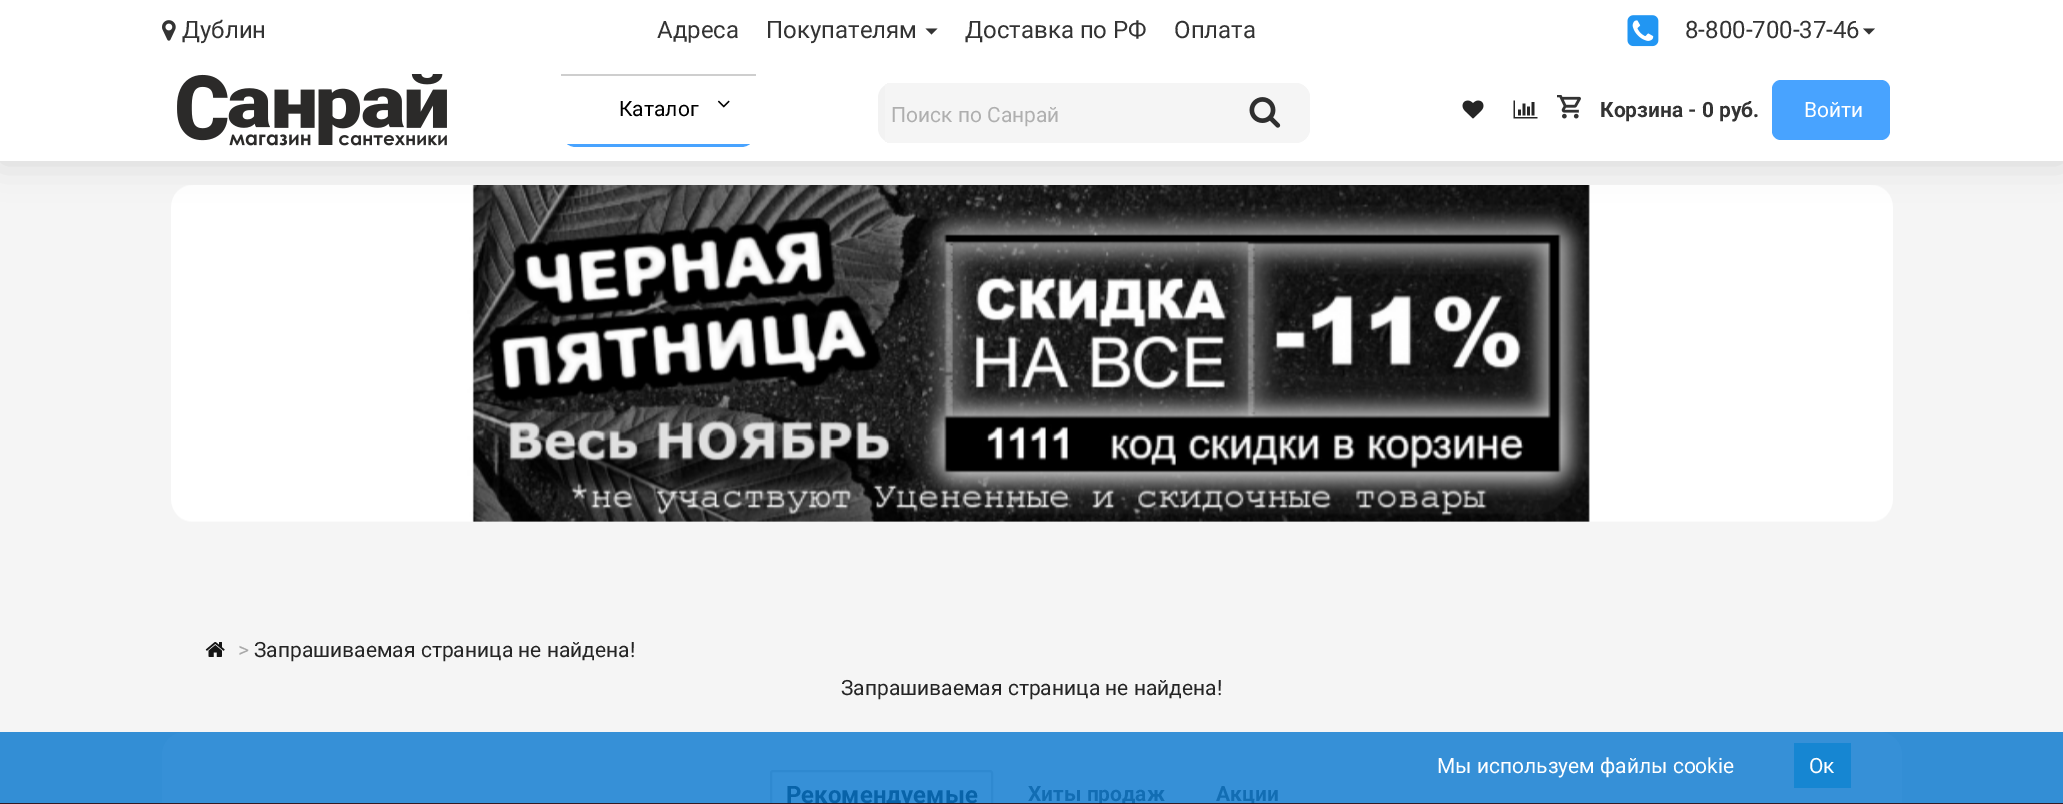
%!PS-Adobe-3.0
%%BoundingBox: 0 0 2063 804
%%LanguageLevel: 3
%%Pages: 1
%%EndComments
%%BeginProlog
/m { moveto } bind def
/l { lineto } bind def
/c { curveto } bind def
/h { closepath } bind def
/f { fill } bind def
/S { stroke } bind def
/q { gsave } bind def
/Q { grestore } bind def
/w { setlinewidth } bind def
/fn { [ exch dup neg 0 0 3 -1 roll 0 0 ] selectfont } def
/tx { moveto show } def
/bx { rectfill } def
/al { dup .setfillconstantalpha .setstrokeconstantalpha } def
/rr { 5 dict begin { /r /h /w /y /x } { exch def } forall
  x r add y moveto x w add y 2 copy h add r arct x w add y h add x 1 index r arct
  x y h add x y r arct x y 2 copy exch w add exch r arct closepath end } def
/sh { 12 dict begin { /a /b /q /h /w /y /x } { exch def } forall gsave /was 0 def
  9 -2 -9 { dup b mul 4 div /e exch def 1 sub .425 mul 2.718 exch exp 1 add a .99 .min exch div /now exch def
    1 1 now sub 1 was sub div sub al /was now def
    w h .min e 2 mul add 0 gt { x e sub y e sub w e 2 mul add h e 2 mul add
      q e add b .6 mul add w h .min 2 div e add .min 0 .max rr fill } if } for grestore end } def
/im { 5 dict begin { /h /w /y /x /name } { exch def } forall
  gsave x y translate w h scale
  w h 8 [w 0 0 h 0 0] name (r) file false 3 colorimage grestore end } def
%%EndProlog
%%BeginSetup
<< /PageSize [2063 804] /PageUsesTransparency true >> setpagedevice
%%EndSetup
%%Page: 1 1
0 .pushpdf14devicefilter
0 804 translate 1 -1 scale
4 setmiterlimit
0.961 setgray
0 0 2063 804 bx
0.2 0.557 0.835 setrgbcolor
0 732 2063 72 bx
(image8.raw) 171 185 1722 337 im
0 setgray
0 66 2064 96 0 18 0.14 sh
1 setgray
0 0 2063 161 bx
(image0.raw) 162 20 14 21 im
/Roboto-Regular 24 fn
0.2 setgray
(Дублин) 182 38 tx
(Адреса) 657 38 tx
(Покупателям) 766 38 tx
925.5 28.5 m 937.5 28.5 l 931.5 34.5 l h f
(Доставка по РФ) 965 38 tx
(Оплата) 1174 38 tx
(image1.raw) 1627 15 32 32 im
(8-800-700-37-46) 1685 38 tx
1863 28.5 m 1875 28.5 l 1869 34.5 l h f
(image2.raw) 177 74 270 72 im
0.282 0.639 1 setrgbcolor
561 74 195 73 15 rr f
1 setgray
561 76 195 68 bx
0.808 setgray
561 74 195 2 bx
/Roboto-Regular 21 fn
0 setgray
(Каталог) 619 116 tx
(image3.raw) 717 100 13 8 im
0.949 setgray
878 83 432 60 15 rr f
q
878 83 432 60 15 rr clip newpath
0.961 setgray
888 83 m 1295 83 l 1303.5 83 1310 89.5 1310 98 c 1310 128 l 1310 136.5 1303.5 143 1295 143 c 885 143 l 885 86 l 885 84.5 886.5 83 888 83 c h f
Q
0.686 setgray
(Поиск по Санрай) 891 122 tx
(image4.raw) 1249 97 32 31 im
(image5.raw) 1462 100 22 19 im
(image6.raw) 1513 100 25 19 im
(image7.raw) 1557 95 24 24 im
/Roboto-Bold 21 fn
0.2 setgray
(Корзина - 0 руб.) 1600 117 tx
0.282 0.639 1 setrgbcolor
1772 80 118 60 9 rr f
/Roboto-Regular 21 fn
1 setgray
(Войти) 1804 117 tx
(image9.raw) 205 642 20 15 im
0.663 setgray
(>) 238 657 tx
0.145 setgray
(Запрашиваемая страница не найдена!) 254 657 tx
(Запрашиваемая страница не найдена!) 841 695 tx
0.212 0.565 0.843 setrgbcolor
162 732 1740 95 23 rr f
0.184 0.537 0.816 setrgbcolor
2 w
771 771 221 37 2 rr S
/Roboto-Bold 24 fn
0.031 0.388 0.663 setrgbcolor
(Рекомендуемые) 786 803 tx
/Roboto-Bold 21 fn
0.071 0.427 0.702 setrgbcolor
(Хиты продаж) 1028 801 tx
(Акции) 1216 801 tx
0.9 al
0.208 0.051 0.055 setrgbcolor
0 803 2063 1 bx
/Roboto-Regular 21 fn
1 al
1 setgray
(Мы используем файлы cookie) 1437 773 tx
0.086 0.525 0.824 setrgbcolor
1794 743 57 45 bx
1 setgray
(Ок) 1809 773 tx
.poppdf14devicefilter showpage
%%EOF
